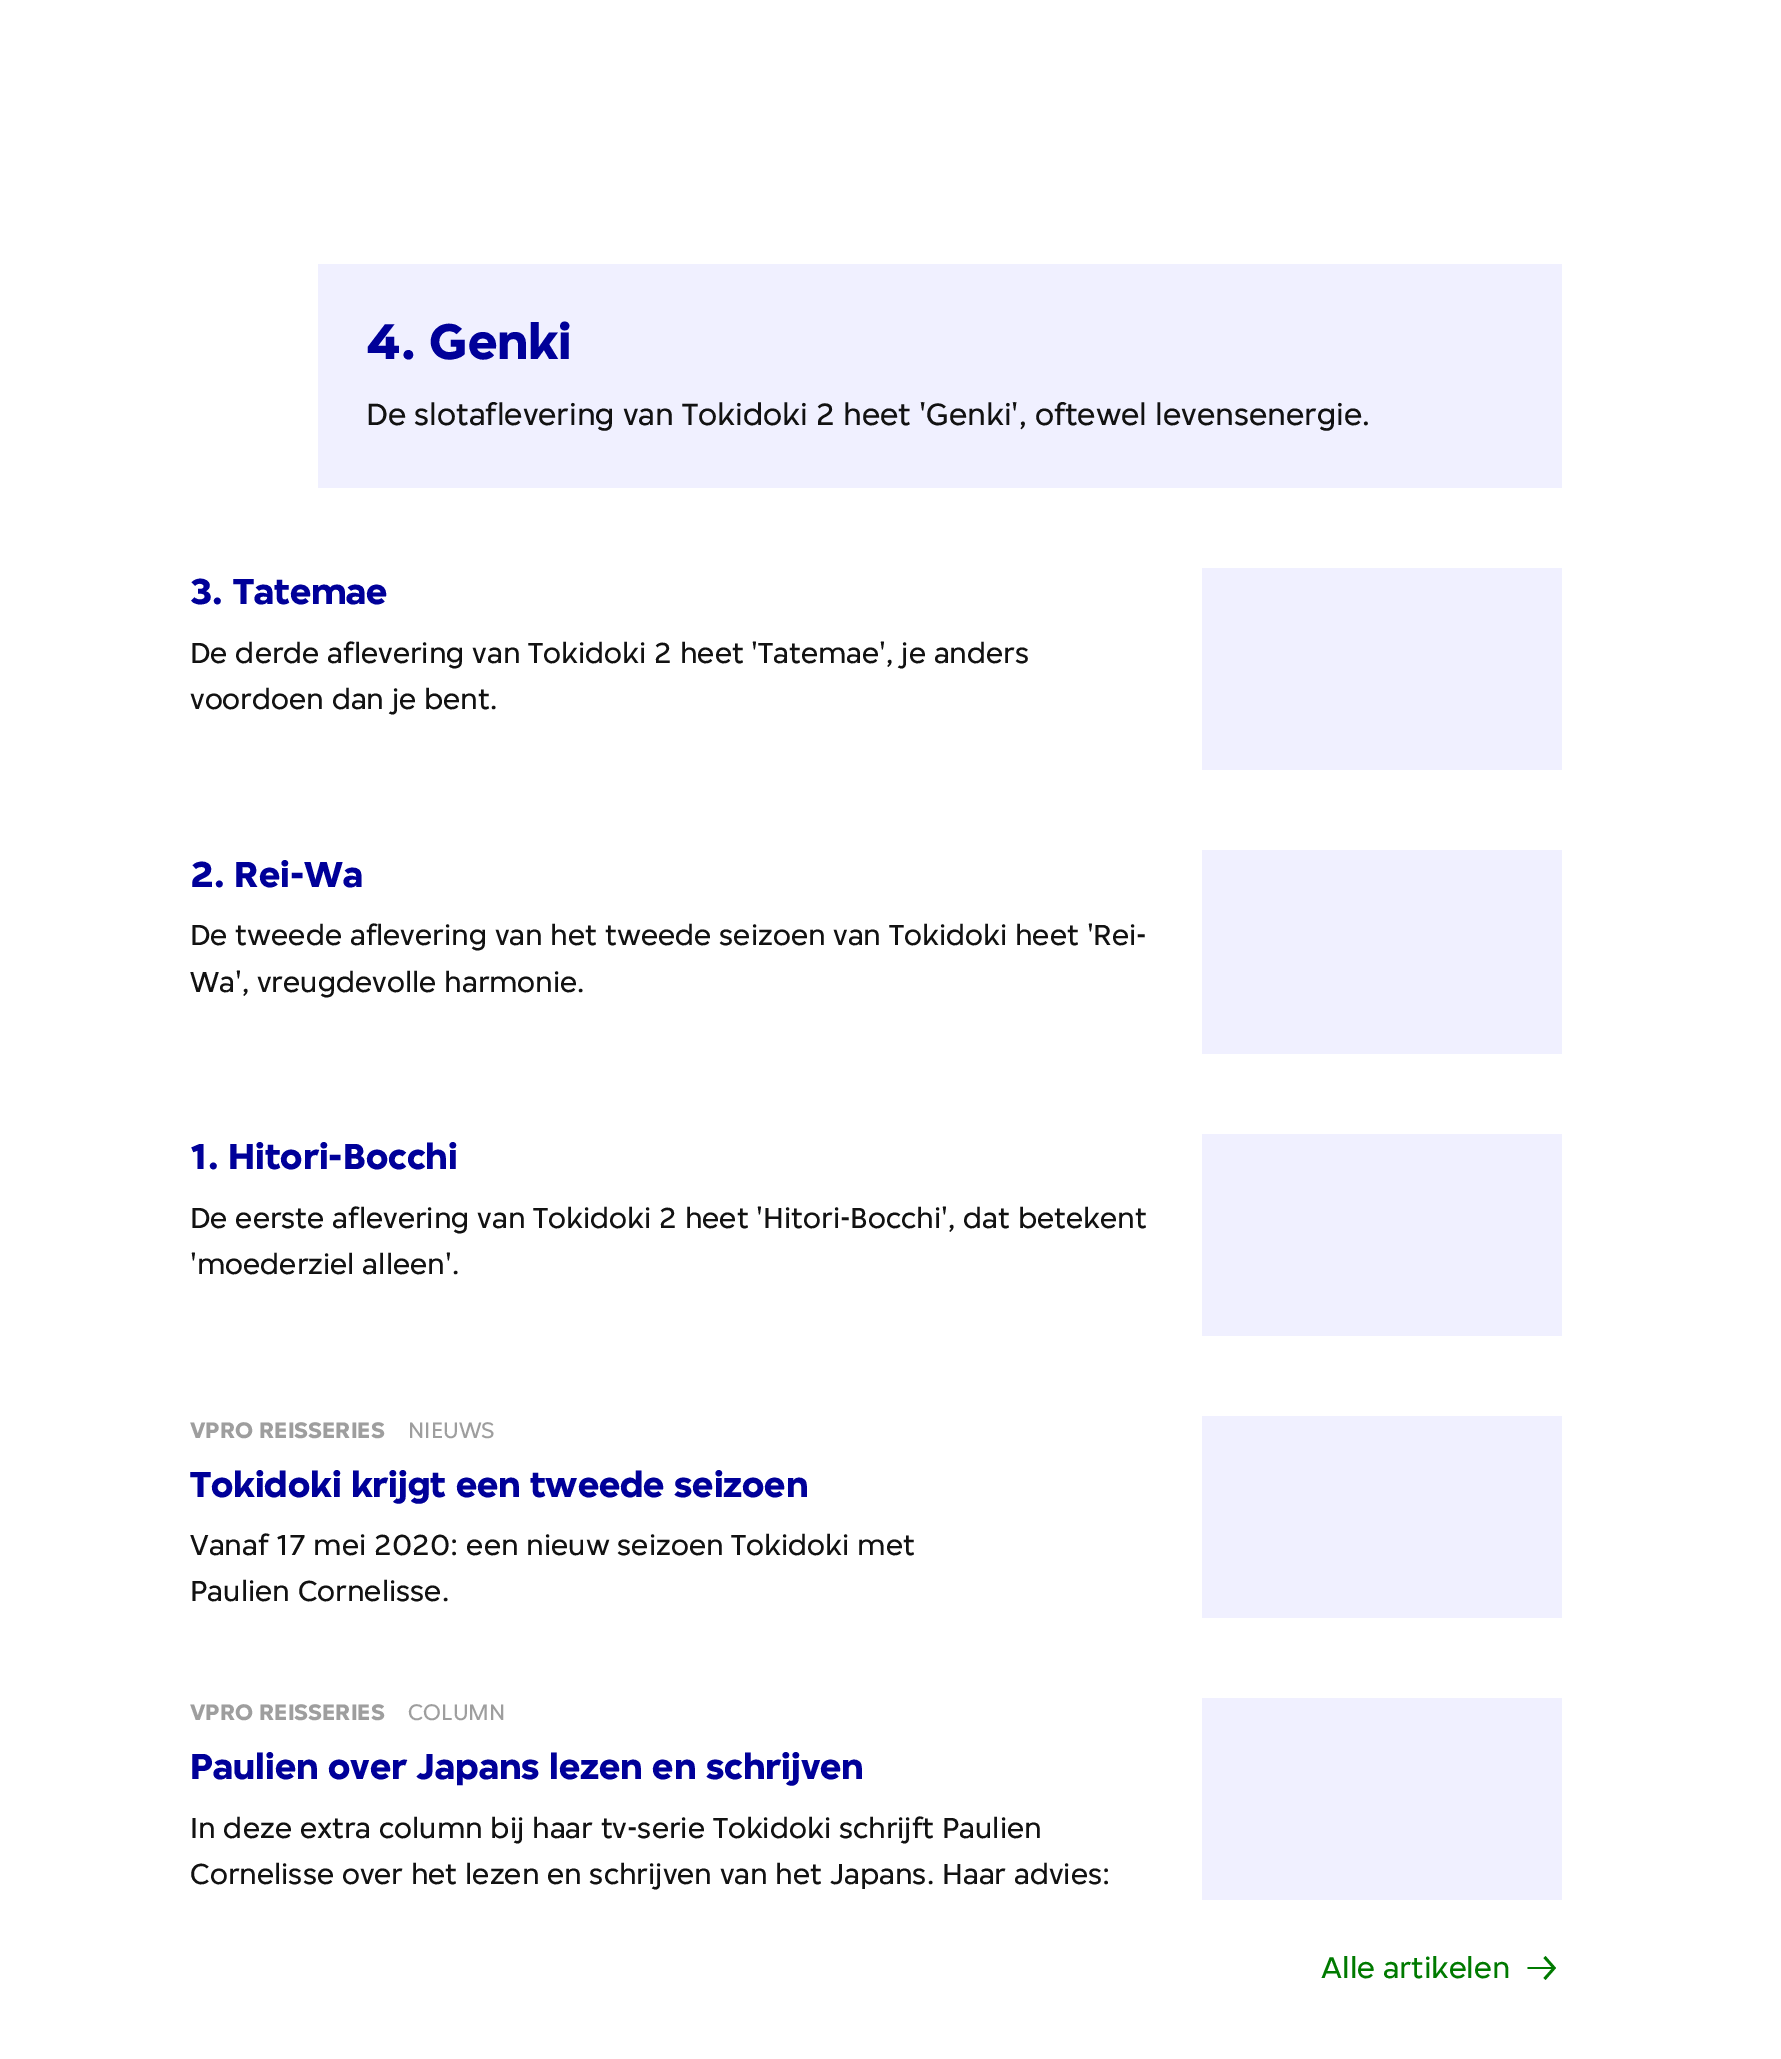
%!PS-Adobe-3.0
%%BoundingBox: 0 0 1781 2059
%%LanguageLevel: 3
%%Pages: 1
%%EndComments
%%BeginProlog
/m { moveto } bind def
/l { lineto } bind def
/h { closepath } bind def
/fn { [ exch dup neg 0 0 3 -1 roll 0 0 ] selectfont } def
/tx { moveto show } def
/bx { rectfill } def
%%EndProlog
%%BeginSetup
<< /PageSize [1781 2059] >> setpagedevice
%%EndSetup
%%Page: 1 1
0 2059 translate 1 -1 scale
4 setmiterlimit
1 setgray
0 0 1781 2059 bx
0.941 0.941 1 setrgbcolor
318 264 1244 224 bx
/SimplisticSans-Bold 53.5 fn
0 0 0.6 setrgbcolor
(4. Genki) 366 359 tx
/SimplisticSans-Regular 32.9 fn
0.071 setgray
366 425 m -0.25 0 32 (De slotaflevering van Tokidoki 2 heet 'Genki', oftewel levensenergie.) widthshow
/SimplisticSans-Bold 38.5 fn
0 0 0.6 setrgbcolor
(3. Tatemae) 190 604 tx
/SimplisticSans-Regular 30.9 fn
0.071 setgray
(De derde aflevering van Tokidoki 2 heet 'Tatemae', je anders) 190 663 tx
(voordoen dan je bent.) 190 709 tx
0.941 0.941 1 setrgbcolor
1202 568 360 202 bx
/SimplisticSans-Bold 38.5 fn
0 0 0.6 setrgbcolor
(2. Rei-Wa) 190 887 tx
/SimplisticSans-Regular 30.9 fn
0.071 setgray
(De tweede aflevering van het tweede seizoen van Tokidoki heet 'Rei-) 190 945 tx
(Wa', vreugdevolle harmonie.) 190 992 tx
0.941 0.941 1 setrgbcolor
1202 850 360 204 bx
/SimplisticSans-Bold 38.5 fn
0 0 0.6 setrgbcolor
(1. Hitori-Bocchi) 190 1169 tx
/SimplisticSans-Regular 30.9 fn
0.071 setgray
(De eerste aflevering van Tokidoki 2 heet 'Hitori-Bocchi', dat betekent) 190 1228 tx
('moederziel alleen'.) 190 1274 tx
0.941 0.941 1 setrgbcolor
1202 1134 360 202 bx
/SimplisticSans-Bold 24 fn
0.62 setgray
(VPRO REISSERIES) 190 1438 tx
/SimplisticSans-Regular 24 fn
(NIEUWS) 408 1438 tx
/SimplisticSans-Bold 38.5 fn
0 0 0.6 setrgbcolor
(Tokidoki krijgt een tweede seizoen) 190 1497 tx
/SimplisticSans-Regular 30.9 fn
0.071 setgray
(Vanaf 17 mei 2020: een nieuw seizoen Tokidoki met) 190 1555 tx
(Paulien Cornelisse.) 190 1601 tx
0.941 0.941 1 setrgbcolor
1202 1416 360 202 bx
/SimplisticSans-Bold 24 fn
0.62 setgray
(VPRO REISSERIES) 190 1720 tx
/SimplisticSans-Regular 24 fn
(COLUMN) 408 1720 tx
/SimplisticSans-Bold 38.5 fn
0 0 0.6 setrgbcolor
(Paulien over Japans lezen en schrijven) 190 1779 tx
/SimplisticSans-Regular 30.9 fn
0.071 setgray
(In deze extra column bij haar tv-serie Tokidoki schrijft Paulien) 190 1838 tx
(Cornelisse over het lezen en schrijven van het Japans. Haar advies:) 190 1884 tx
0.941 0.941 1 setrgbcolor
1202 1698 360 202 bx
/SimplisticSans-Regular 32 fn
0 0.478 0 setrgbcolor
(Alle artikelen) 1321 1978 tx
1545.5 1956 m 1556 1968 l 1545.5 1980 l 1543.5 1978 l 1551.5 1969 l 1527.5 1969 l 1527.5 1967 l 1551.5 1967 l 1543.5 1958 l h eofill
showpage
%%EOF
